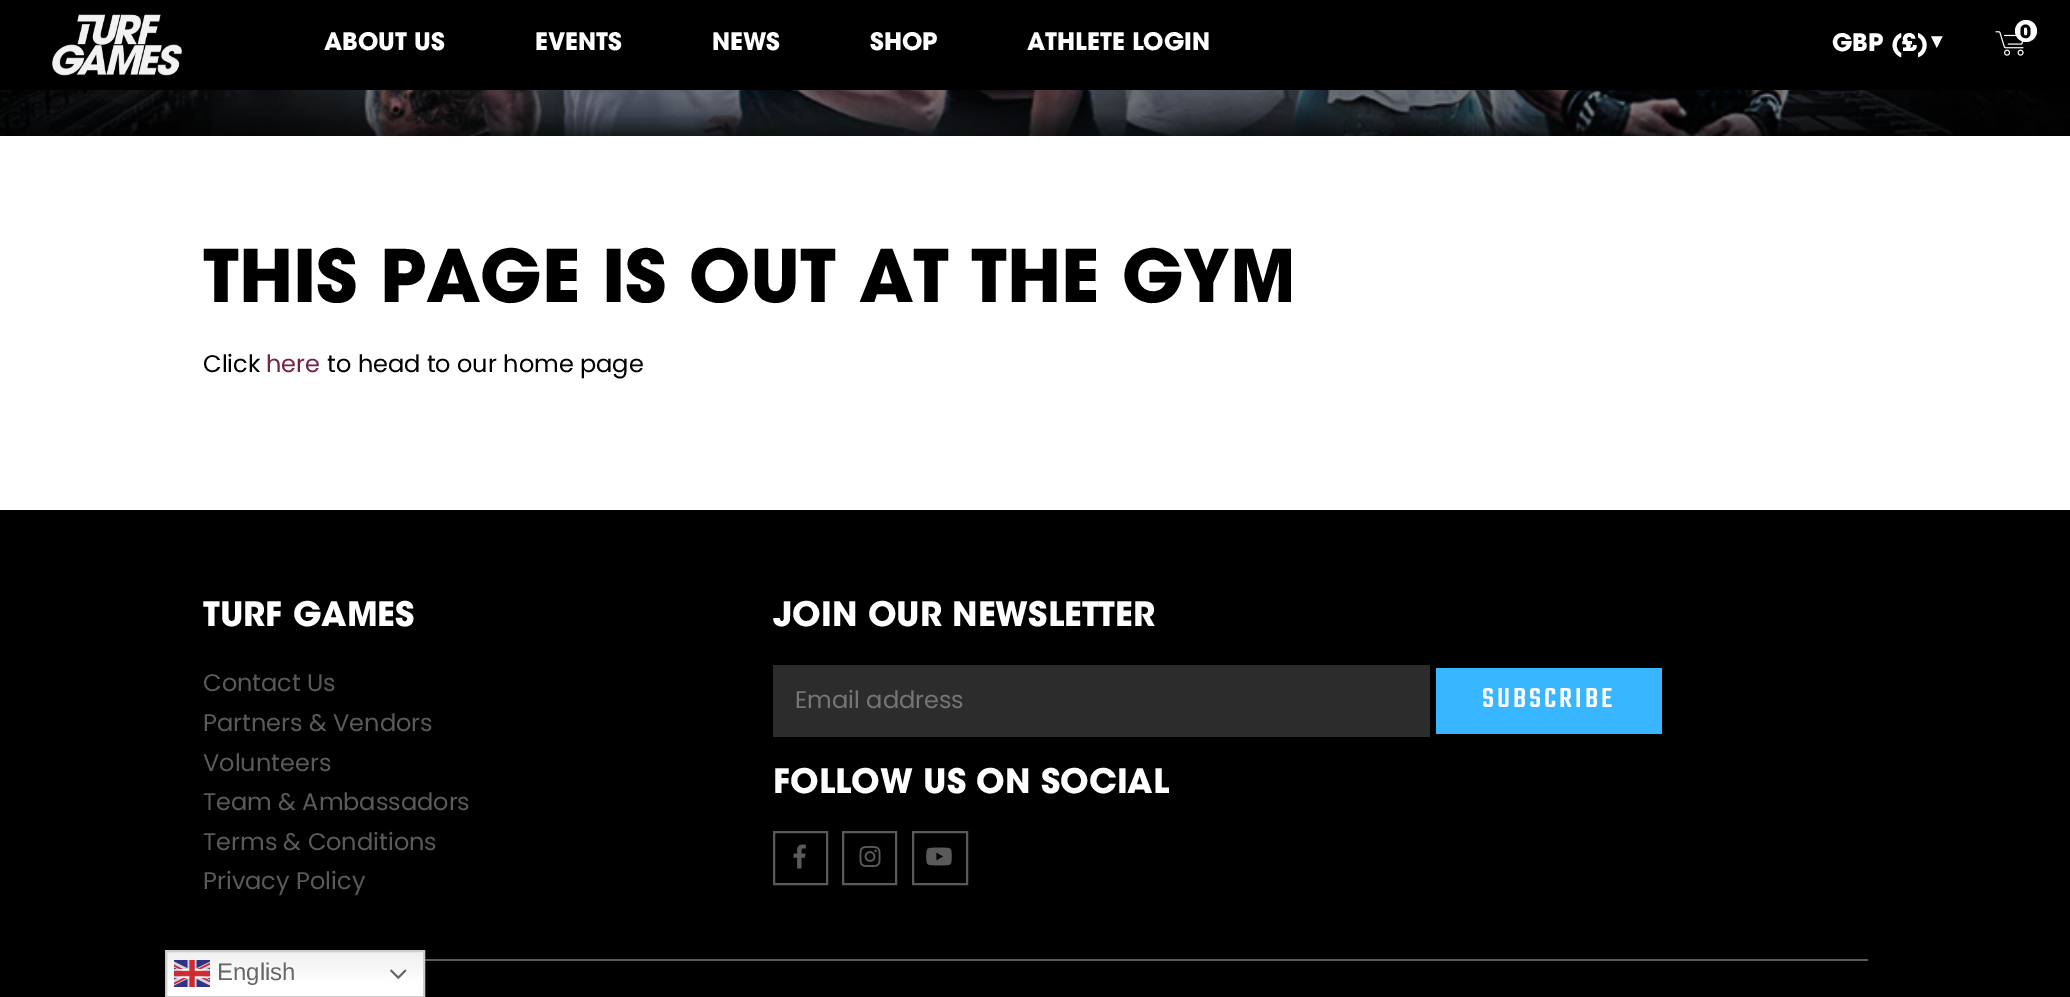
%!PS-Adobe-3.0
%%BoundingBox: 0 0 2070 997
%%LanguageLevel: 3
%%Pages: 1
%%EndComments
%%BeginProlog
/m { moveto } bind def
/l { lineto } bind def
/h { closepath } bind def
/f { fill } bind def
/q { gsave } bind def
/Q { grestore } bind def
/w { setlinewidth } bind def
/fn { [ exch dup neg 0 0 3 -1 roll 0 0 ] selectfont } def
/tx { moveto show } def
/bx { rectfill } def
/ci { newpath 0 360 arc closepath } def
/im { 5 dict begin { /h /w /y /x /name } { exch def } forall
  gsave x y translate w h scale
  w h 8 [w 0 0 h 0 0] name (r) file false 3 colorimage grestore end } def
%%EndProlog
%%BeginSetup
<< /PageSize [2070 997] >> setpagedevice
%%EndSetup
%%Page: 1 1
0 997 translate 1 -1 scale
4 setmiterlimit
1 setgray
0 0 2070 997 bx
0 setgray
0 0 2070 90 bx
(image0.raw) 52 14 130 62 im
/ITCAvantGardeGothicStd-Bold 24 fn
1 setgray
(ABOUT US) 324 50 tx
(EVENTS) 535 50 tx
(NEWS) 712 50 tx
(SHOP) 870 50 tx
(ATHLETE LOGIN) 1027 50 tx
(GBP \(£\)) 1832 51 tx
/DejaVuSans-Bold 22 fn
(▾) 1931 48 tx
(image1.raw) 1995 31 29 25 im
2026 31 11 ci f
/ITCAvantGardeGothicStd-Bold 18 fn
0 setgray
(0) 2020 38 tx
(image2.raw) 0 90 2070 46 im
/ITCAvantGardeGothicStd-Bold 72 fn
(THIS PAGE IS OUT AT THE GYM) 203 302 tx
/Poppins-Regular 24 fn
(Click) 203 372 tx
0.459 0.141 0.275 setrgbcolor
(here) 266 372 tx
0 setgray
(to head to our home page) 327 372 tx
0 510 2070 487 bx
/ITCAvantGardeGothicStd-Bold 33.6 fn
1 setgray
(TURF GAMES) 203 626 tx
/Poppins-Regular 24 fn
0.353 setgray
(Contact Us) 203 691 tx
(Partners & Vendors) 203 731 tx
(Volunteers) 203 771 tx
(Team & Ambassadors) 203 810 tx
(Terms & Conditions) 203 850 tx
(Privacy Policy) 203 889 tx
/ITCAvantGardeGothicStd-Bold 33.6 fn
1 setgray
(JOIN OUR NEWSLETTER) 773 626 tx
0.173 setgray
773 665 657 72 bx
/Poppins-Regular 24 fn
0.459 setgray
(Email address) 795 708 tx
0.22 0.714 1 setrgbcolor
1436 668 226 66 bx
/Teko-Medium 30 fn
1 setgray
1482 707 m 3 0 (SUBSCRIBE) ashow
/ITCAvantGardeGothicStd-Bold 33.6 fn
(FOLLOW US ON SOCIAL) 773 793 tx
0.353 setgray
2 w
774 832 53 52 rectstroke
(image3.raw) 793 844 13 25 im
843 832 53 52 rectstroke
(image4.raw) 859 846 22 21 im
913 832 54 52 rectstroke
(image5.raw) 926 847 26 19 im
425 959 1443 2 bx
q 167 952 m 423 952 l 423 996 l 167 996 l h clip newpath
<< /ShadingType 2 /ColorSpace /DeviceRGB /Coords [295 950 295 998] /Extend [true true] /Function << /FunctionType 3 /Domain [0 1] /Functions [<< /FunctionType 2 /Domain [0 1] /C0 [0.937 0.937 0.937] /C1 [1 1 1] /N 1 >> << /FunctionType 2 /Domain [0 1] /C0 [1 1 1] /C1 [1 1 1] /N 1 >>] /Bounds [0.7] /Encode [0 1 0 1] >> >> shfill Q
0.8 setgray
166 951 258 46 rectstroke
(image6.raw) 174 960 36 27 im
/LiberationSans-Regular 24 fn
0.4 setgray
(English) 217 980 tx
(image7.raw) 390 969 17 10 im
showpage
%%EOF
